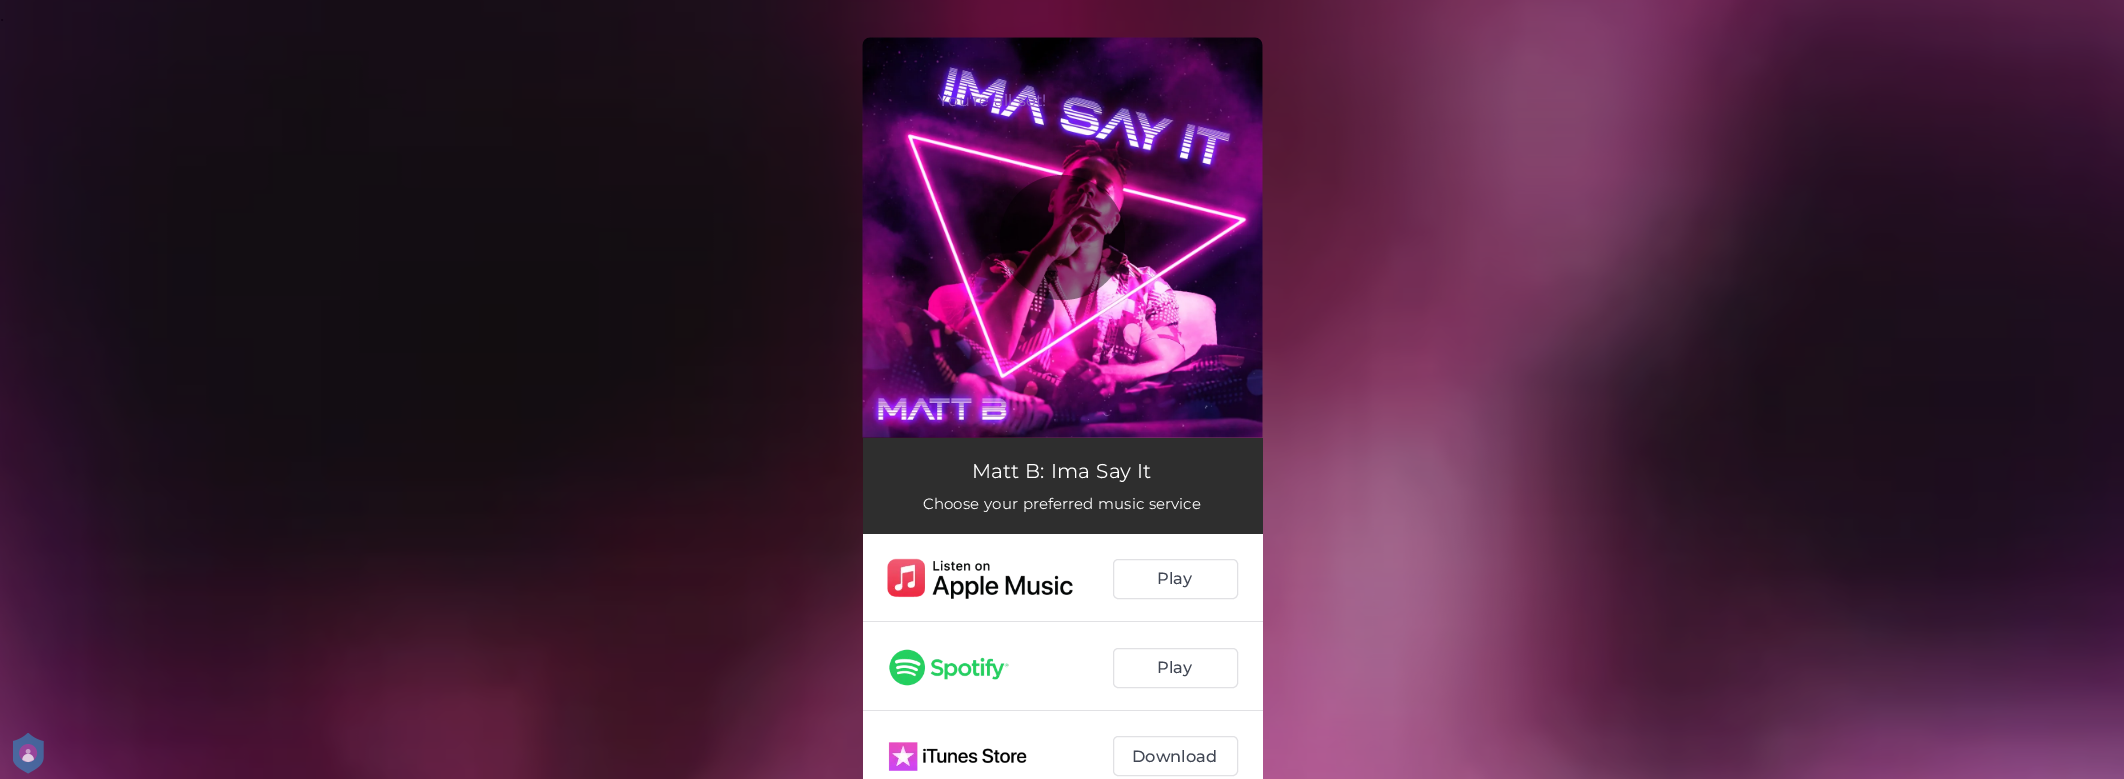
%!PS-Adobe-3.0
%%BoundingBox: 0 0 2124 779
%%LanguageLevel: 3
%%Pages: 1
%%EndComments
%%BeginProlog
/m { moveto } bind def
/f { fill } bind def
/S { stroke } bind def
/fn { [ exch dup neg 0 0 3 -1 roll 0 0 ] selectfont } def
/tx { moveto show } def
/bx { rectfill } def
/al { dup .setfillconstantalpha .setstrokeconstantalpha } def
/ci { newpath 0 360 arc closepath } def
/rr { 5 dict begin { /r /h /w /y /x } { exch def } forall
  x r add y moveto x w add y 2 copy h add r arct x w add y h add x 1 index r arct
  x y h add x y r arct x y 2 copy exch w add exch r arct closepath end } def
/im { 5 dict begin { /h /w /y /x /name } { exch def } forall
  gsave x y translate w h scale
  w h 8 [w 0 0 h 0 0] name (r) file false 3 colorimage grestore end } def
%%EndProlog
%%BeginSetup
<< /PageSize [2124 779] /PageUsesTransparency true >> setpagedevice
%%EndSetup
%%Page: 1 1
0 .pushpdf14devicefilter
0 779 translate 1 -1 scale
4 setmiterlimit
1 setgray
0 0 2124 779 bx
(image1.raw) 0 0 2124 779 im
(image0.raw) 13 733 31 41 im
(image2.raw) 862 37 401 401 im
0.45 al
0 setgray
1062.5 237.5 62.5 ci f
/Montserrat-Regular 16.25 fn
1 al
0.557 0.361 0.761 setrgbcolor
938 106 m 1 0 32 (You're all set!) widthshow
0.18 setgray
863 438 400 96 bx
/Montserrat-Regular 20 fn
1 setgray
972 478 m 1 0 32 (Matt B: Ima Say It) widthshow
/Montserrat-Regular 15 fn
923 509 m 1 0 32 (Choose your preferred music service) widthshow
863 534 400 245 bx
0.882 0.882 0.894 setrgbcolor
863 621 400 1 bx
(image3.raw) 887 558 186 41 im
1113.5 559.5 124 39 4.5 rr S
/Montserrat-Medium 16.25 fn
0.255 0.278 0.329 setrgbcolor
(Play) 1157 584 tx
0.882 0.882 0.894 setrgbcolor
863 710 400 1 bx
(image4.raw) 889 649 120 37 im
1113.5 648.5 124 39 4.5 rr S
0.255 0.278 0.329 setrgbcolor
(Play) 1157 673 tx
(image5.raw) 888 742 139 29 im
0.882 0.882 0.894 setrgbcolor
1113.5 736.5 124 39 4.5 rr S
0.255 0.278 0.329 setrgbcolor
(Download) 1132 762 tx
.poppdf14devicefilter showpage
%%EOF
